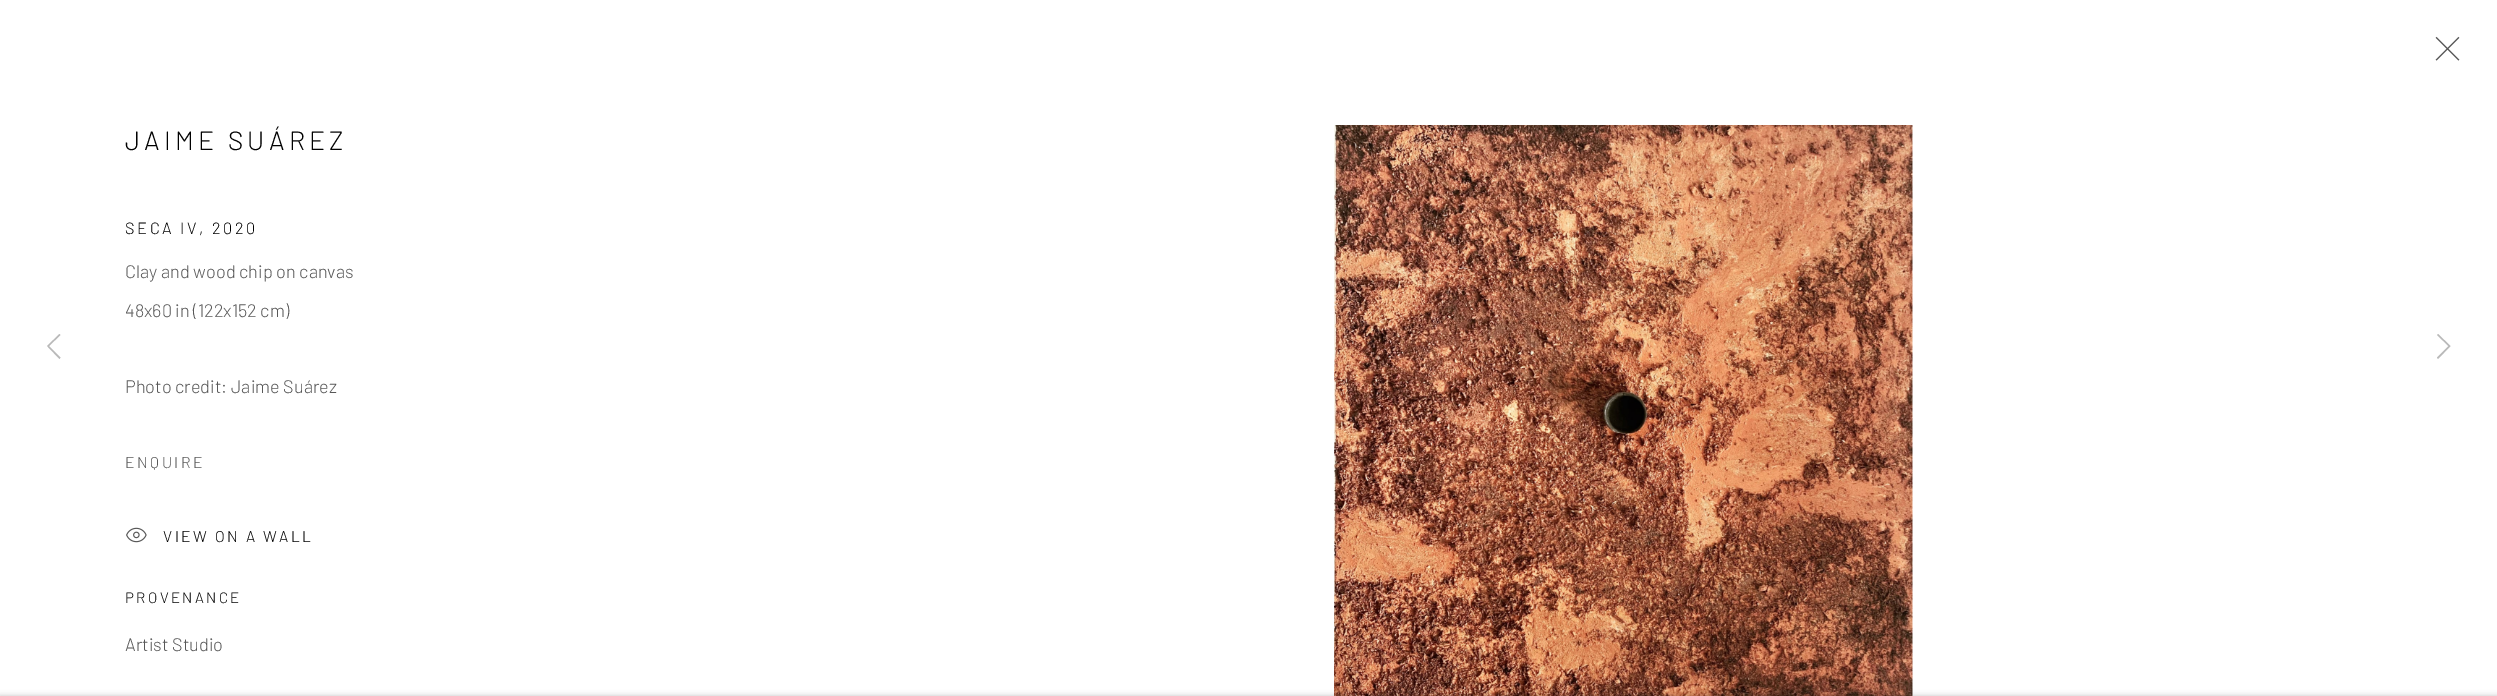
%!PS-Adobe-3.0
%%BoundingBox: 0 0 2497 696
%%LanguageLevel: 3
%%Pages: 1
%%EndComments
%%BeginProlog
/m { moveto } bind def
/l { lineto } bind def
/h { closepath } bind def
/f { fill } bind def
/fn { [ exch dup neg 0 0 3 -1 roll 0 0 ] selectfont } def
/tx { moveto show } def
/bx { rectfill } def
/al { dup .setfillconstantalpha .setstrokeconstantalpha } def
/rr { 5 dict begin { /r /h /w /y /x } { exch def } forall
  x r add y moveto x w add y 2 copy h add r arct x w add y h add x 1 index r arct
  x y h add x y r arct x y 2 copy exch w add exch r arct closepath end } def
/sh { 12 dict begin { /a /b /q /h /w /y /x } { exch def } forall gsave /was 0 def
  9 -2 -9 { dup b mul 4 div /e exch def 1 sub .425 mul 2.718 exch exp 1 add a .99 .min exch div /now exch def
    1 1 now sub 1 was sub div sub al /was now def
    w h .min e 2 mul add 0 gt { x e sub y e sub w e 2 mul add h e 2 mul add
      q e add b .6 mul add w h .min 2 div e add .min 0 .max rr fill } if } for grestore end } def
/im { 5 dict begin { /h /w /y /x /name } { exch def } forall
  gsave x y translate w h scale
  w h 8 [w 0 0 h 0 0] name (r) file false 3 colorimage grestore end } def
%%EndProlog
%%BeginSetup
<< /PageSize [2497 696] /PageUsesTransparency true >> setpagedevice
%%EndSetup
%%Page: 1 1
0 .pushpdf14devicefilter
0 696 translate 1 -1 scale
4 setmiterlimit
1 setgray
0 0 2497 696 bx
(image0.raw) 2435 36 25 25 im
/Barlow-Light 26.25 fn
0.004 setgray
125 150 m 4.25 0 (JAIME SUÁREZ) ashow
/Barlow-Light 16.25 fn
125 234 m 2.6 0 (SECA IV, 2020) ashow
/Barlow-Light 18.1 fn
0.345 setgray
(Clay and wood chip on canvas) 125 278 tx
(48x60 in \(122x152 cm\)) 125 317 tx
(Photo credit: Jaime Suárez) 125 393 tx
/Barlow-Light 15.6 fn
125 468 m 2.5 0 (ENQUIRE) ashow
(image1.raw) 126 527 21 16 im
0.004 setgray
163 542 m 2.5 0 (VIEW ON A WALL) ashow
/Barlow-Light 15 fn
125 603 m 2.4 0 (PROVENANCE) ashow
/Barlow-Light 18.1 fn
0.345 setgray
(Artist Studio) 125 651 tx
(image2.raw) 1334 125 579 571 im
0.725 setgray
48 347 m 59.5 359 l 60.5 357.5 l 49 346 l 60.5 335 l 59.5 334 l 47 346 l h f
2450.5 346 m 2438 334 l 2437 335 l 2448.5 346 l 2437 357.5 l 2438 359 l h f
0 setgray
0 696 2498 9 0 3 0.23 sh
.poppdf14devicefilter showpage
%%EOF
